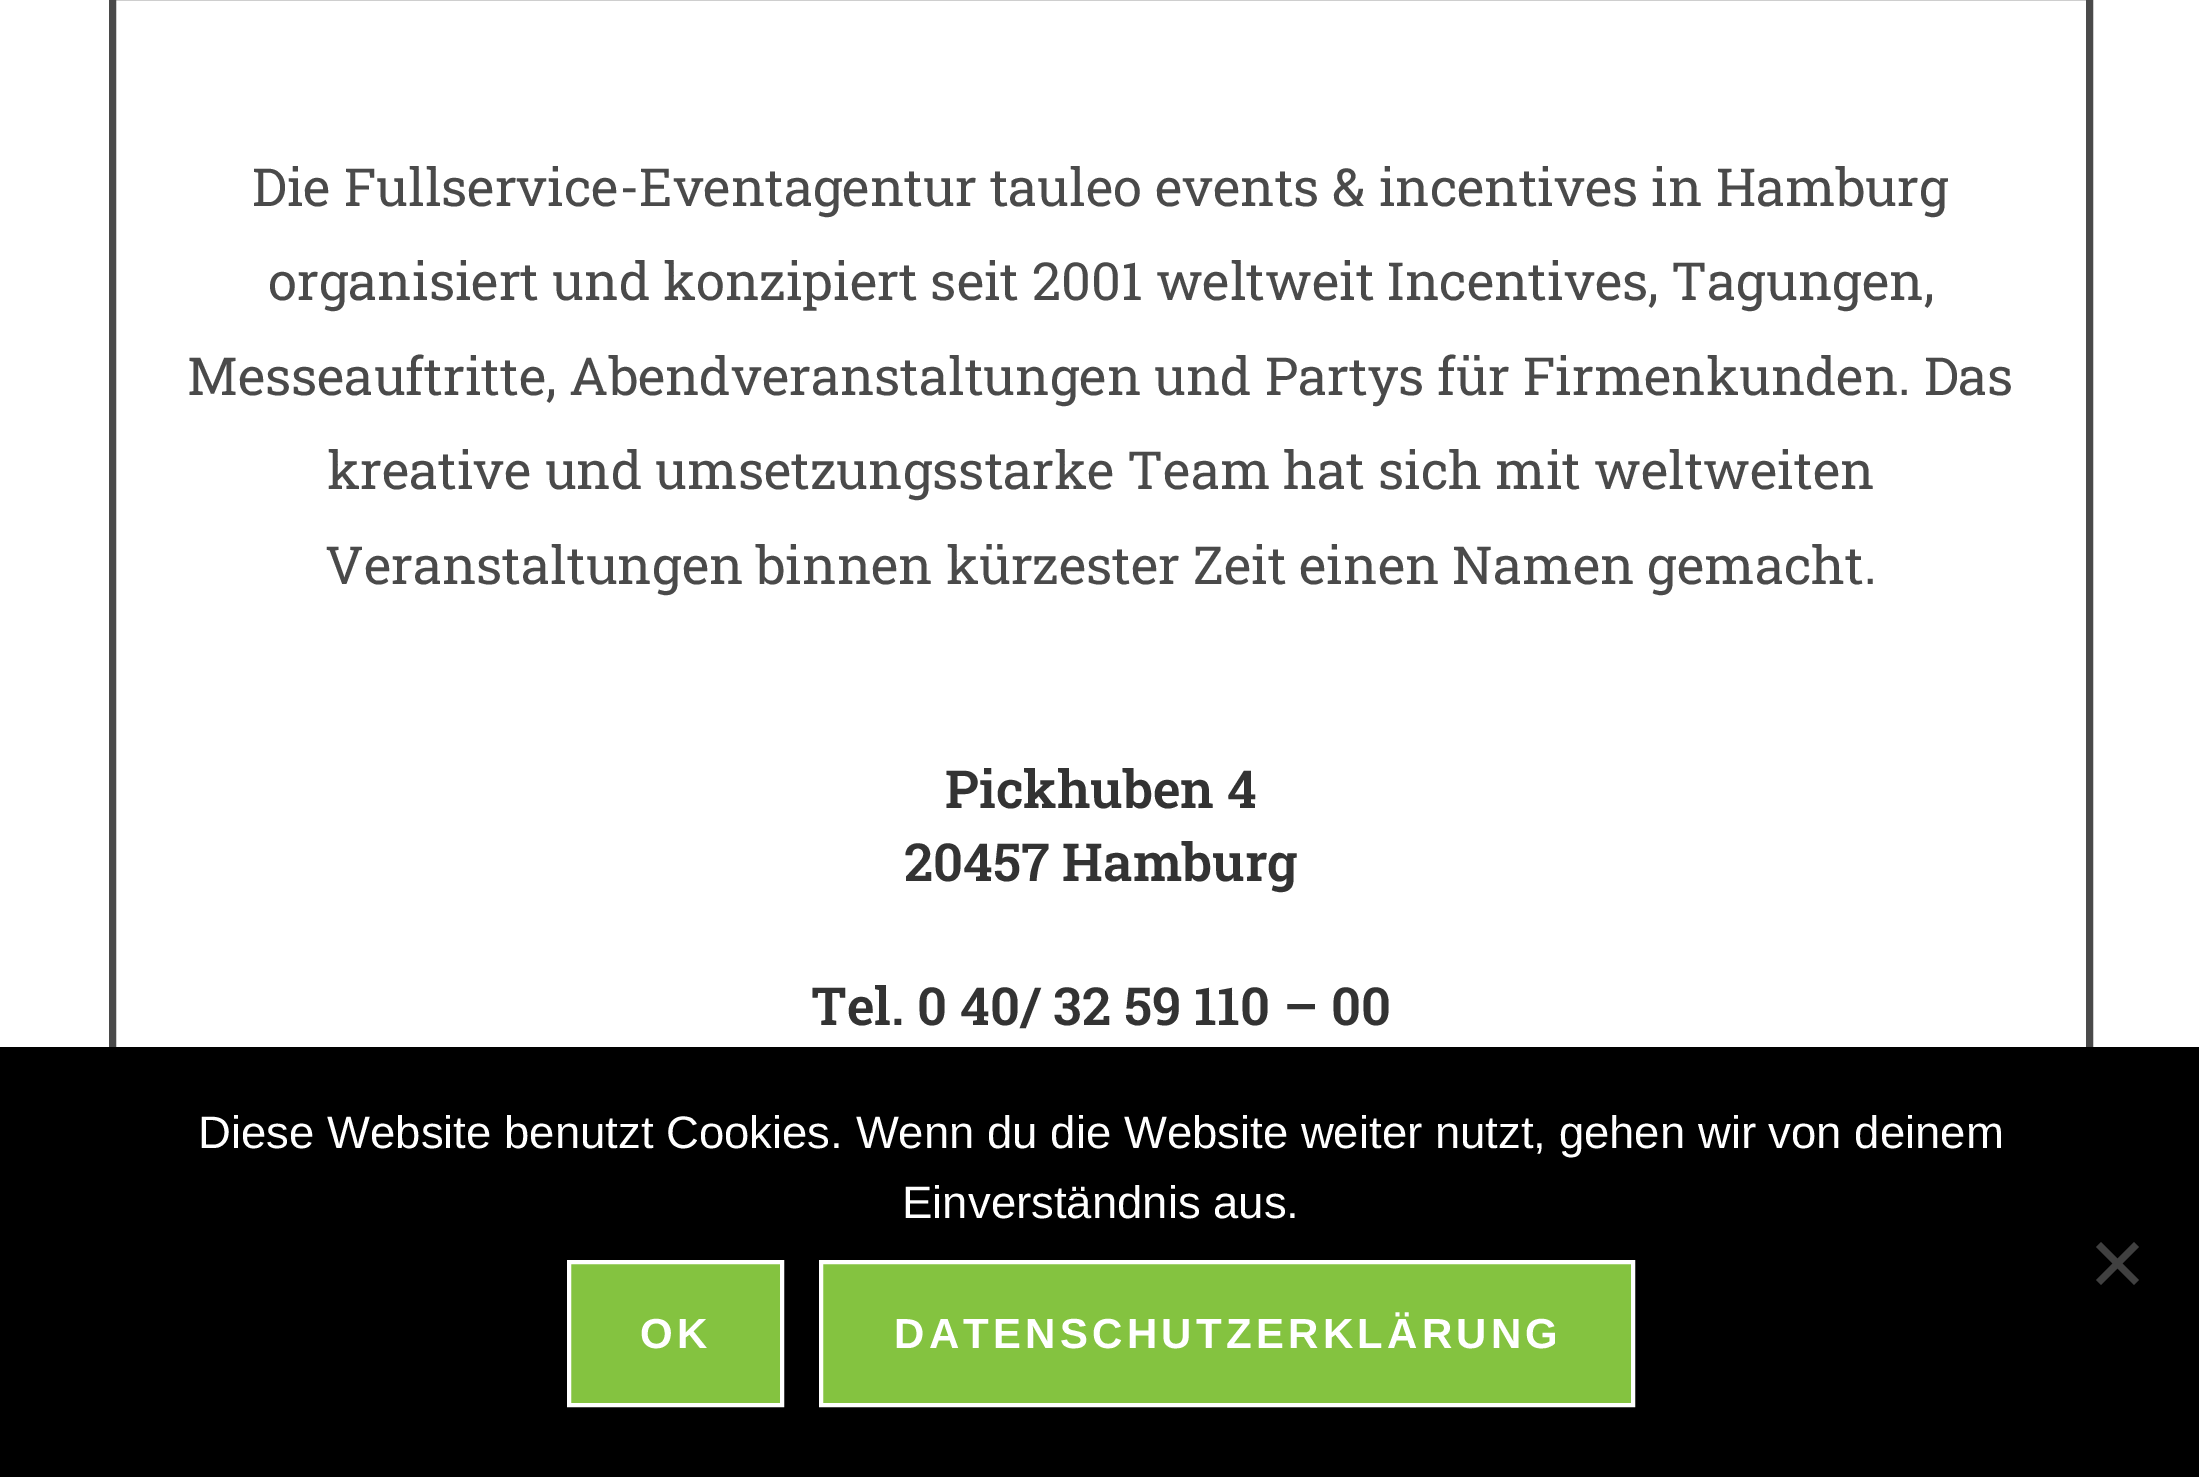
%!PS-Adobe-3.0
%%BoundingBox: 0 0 2199 1477
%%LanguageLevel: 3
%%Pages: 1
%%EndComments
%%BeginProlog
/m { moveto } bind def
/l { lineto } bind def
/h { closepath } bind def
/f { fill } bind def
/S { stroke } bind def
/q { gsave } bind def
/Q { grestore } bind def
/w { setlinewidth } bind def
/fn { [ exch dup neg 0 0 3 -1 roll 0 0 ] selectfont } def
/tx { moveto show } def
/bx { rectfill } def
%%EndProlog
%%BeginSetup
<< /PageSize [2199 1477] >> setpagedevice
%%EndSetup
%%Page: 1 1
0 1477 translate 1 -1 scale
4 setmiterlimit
1 setgray
0 0 2199 1477 bx
0.29 setgray
7 w
112.5 -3.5 1977 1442 rectstroke
/RobotoSlab-Regular 52.5 fn
(Die Fullservice-Eventagentur tauleo events & incentives in Hamburg) 252 206 tx
(organisiert und konzipiert seit 2001 weltweit Incentives, Tagungen,) 268 300 tx
(Messeauftritte, Abendveranstaltungen und Partys für Firmenkunden. Das) 187 395 tx
(kreative und umsetzungsstarke Team hat sich mit weltweiten) 327 489 tx
(Veranstaltungen binnen kürzester Zeit einen Namen gemacht.) 325 584 tx
/RobotoSlab-SemiBold 52.5 fn
0.2 setgray
(Pickhuben 4) 945 808 tx
(20457 Hamburg) 904 881 tx
(Tel. 0 40/ 32 59 110 – 00) 811 1025 tx
0 setgray
0 1047 2199 430 bx
/LiberationSans-Regular 45.5 fn
1 setgray
(Diese Website benutzt Cookies. Wenn du die Website weiter nutzt, gehen wir von deinem) 198 1148 tx
(Einverständnis aus.) 902 1218 tx
0.251 setgray
2134 1242 m 2139 1247 l 2101 1285 l 2096 1280 l h f
2096 1247 m 2101 1242 l 2139 1280 l 2134 1285 l h f
0.518 0.765 0.251 setrgbcolor
569 1262 m 782 1262 l 782 1405 l 569 1405 l h q f Q
1 setgray
4 w
S
/LiberationSans-Bold 42 fn
640 1348 m 4.25 0 (OK) ashow
0.518 0.765 0.251 setrgbcolor
821 1262 m 1633 1262 l 1633 1405 l 821 1405 l h q f Q
1 setgray
S
894 1348 m 4.25 0 (DATENSCHUTZERKLÄRUNG) ashow
showpage
%%EOF
